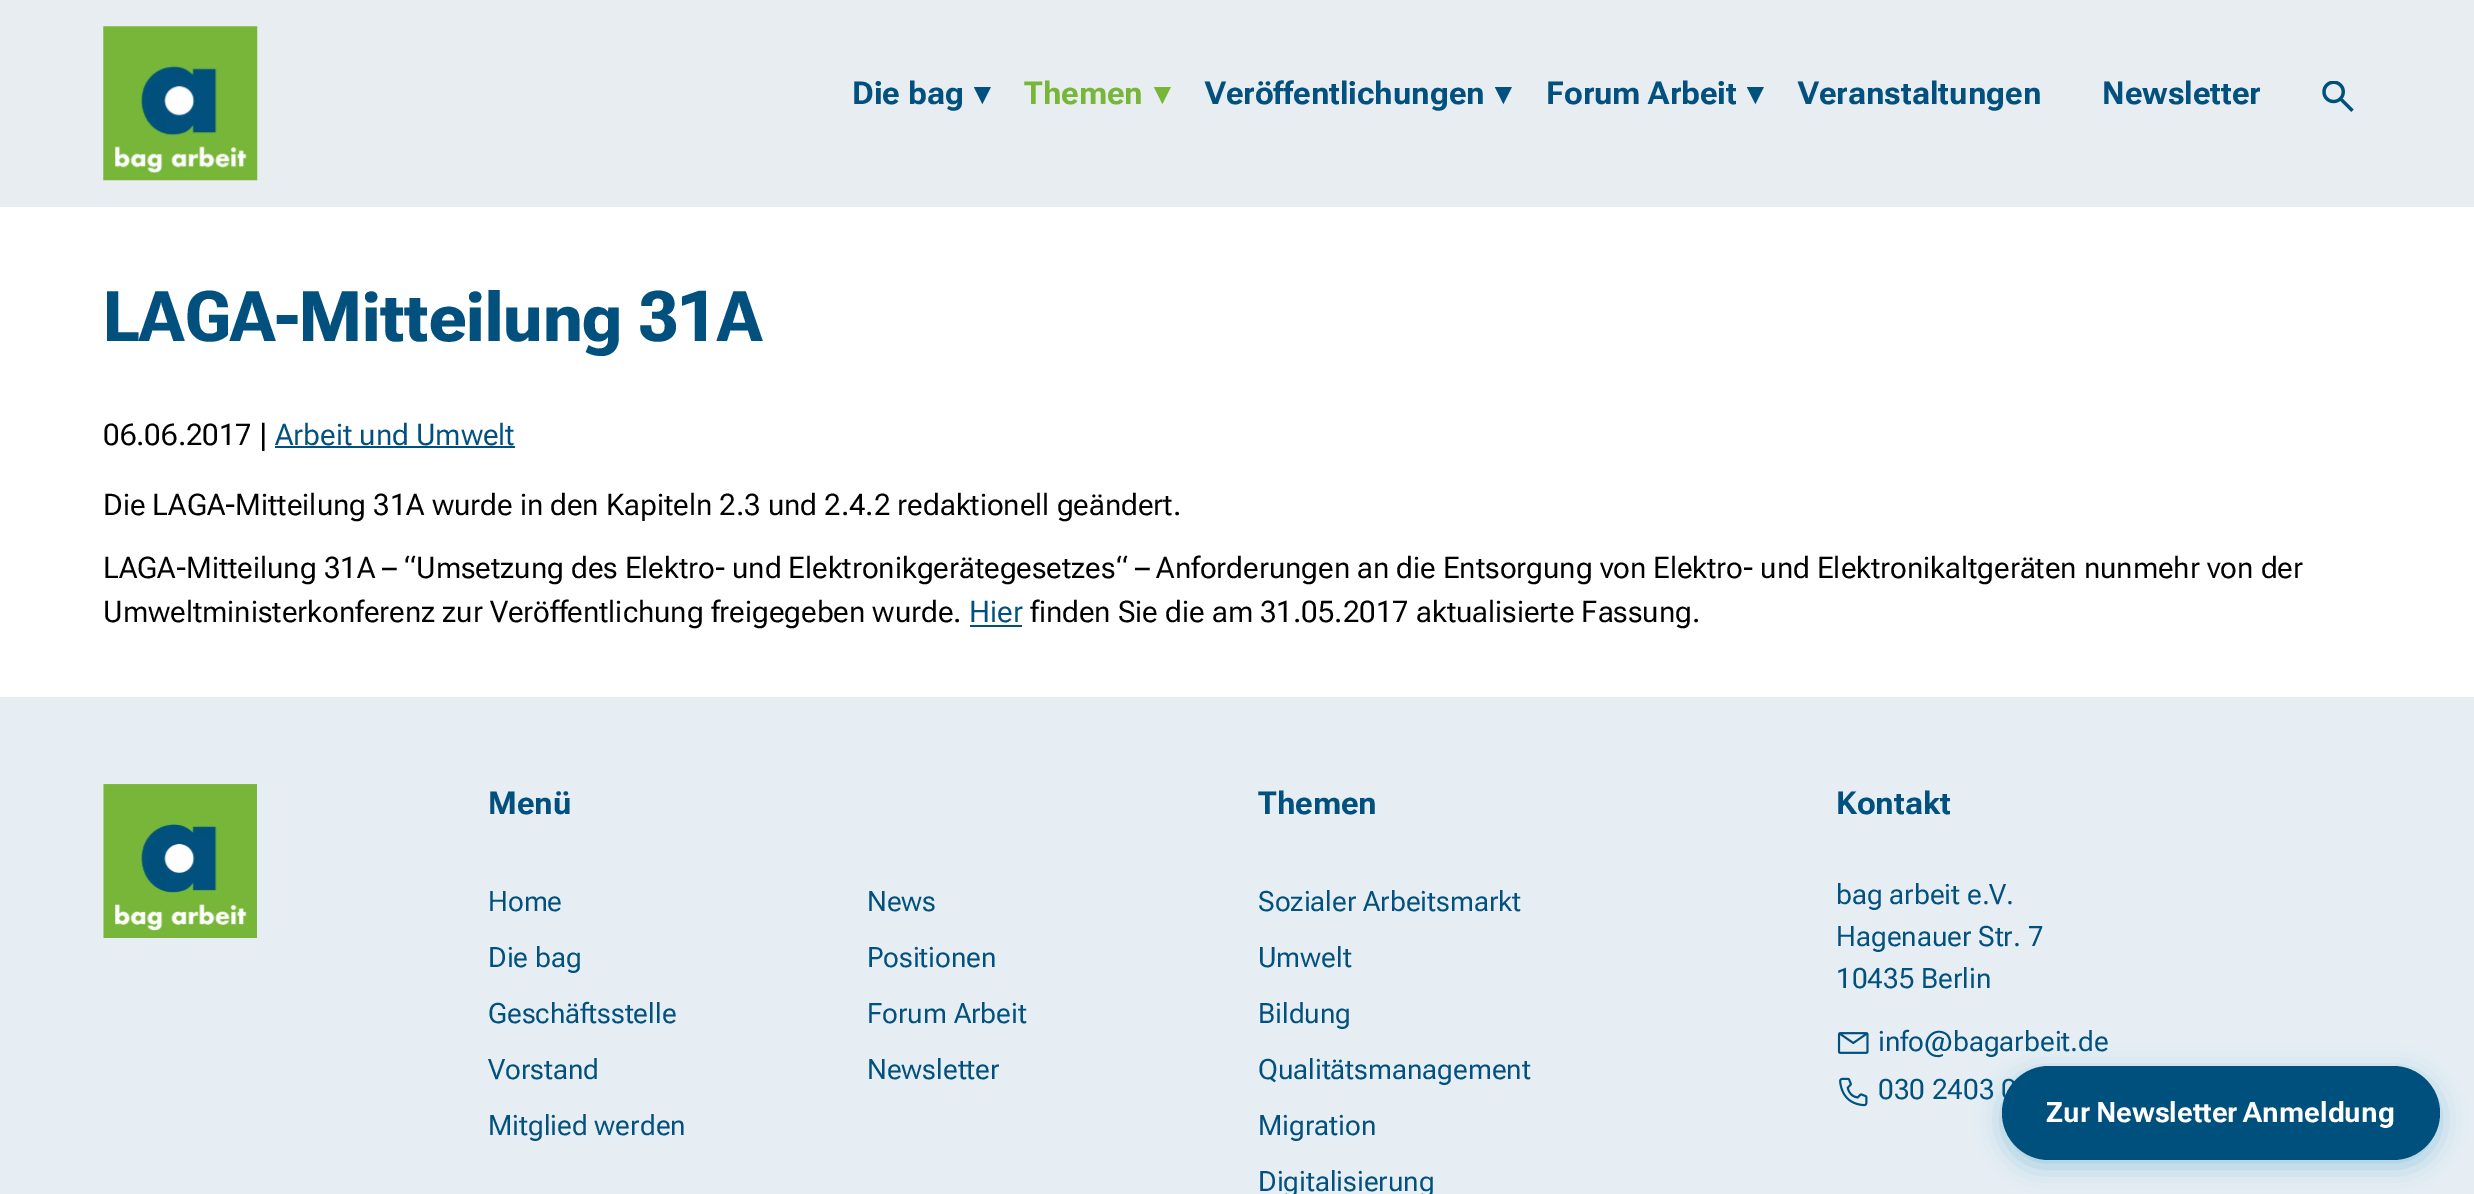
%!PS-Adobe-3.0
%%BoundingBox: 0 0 2474 1194
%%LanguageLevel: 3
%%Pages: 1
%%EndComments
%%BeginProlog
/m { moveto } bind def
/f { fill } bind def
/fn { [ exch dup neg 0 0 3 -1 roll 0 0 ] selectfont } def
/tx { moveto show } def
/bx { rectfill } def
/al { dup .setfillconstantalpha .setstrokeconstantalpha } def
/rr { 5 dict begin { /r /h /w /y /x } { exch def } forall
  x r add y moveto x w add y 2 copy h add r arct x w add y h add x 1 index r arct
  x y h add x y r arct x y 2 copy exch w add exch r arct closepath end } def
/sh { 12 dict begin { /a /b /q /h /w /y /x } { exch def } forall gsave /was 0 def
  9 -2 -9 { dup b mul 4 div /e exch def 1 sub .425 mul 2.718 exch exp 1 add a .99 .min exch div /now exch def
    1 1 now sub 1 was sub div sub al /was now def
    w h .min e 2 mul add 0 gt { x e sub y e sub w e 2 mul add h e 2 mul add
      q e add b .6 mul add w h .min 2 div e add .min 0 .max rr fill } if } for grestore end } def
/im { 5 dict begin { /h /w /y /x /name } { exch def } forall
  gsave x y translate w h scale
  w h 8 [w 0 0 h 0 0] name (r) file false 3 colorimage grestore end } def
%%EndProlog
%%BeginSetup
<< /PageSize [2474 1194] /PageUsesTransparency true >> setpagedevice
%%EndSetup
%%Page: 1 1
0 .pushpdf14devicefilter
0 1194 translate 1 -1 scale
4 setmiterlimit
1 setgray
0 0 2474 1194 bx
0.91 0.929 0.945 setrgbcolor
0 0 2474 207 bx
(image0.raw) 103 26 155 155 im
/RobotoFlex-Bold 31.5 fn
0.004 0.314 0.494 setrgbcolor
(Die bag) 852 104 tx
/DejaVuSans-Bold 31.5 fn
(▾) 974 104 tx
/RobotoFlex-Bold 31.5 fn
0.467 0.714 0.22 setrgbcolor
(Themen) 1024 104 tx
/DejaVuSans-Bold 31.5 fn
(▾) 1154 104 tx
/RobotoFlex-Bold 31.5 fn
0.004 0.314 0.494 setrgbcolor
(Veröffentlichungen) 1205 104 tx
/DejaVuSans-Bold 31.5 fn
(▾) 1495 104 tx
/RobotoFlex-Bold 31.5 fn
(Forum Arbeit) 1546 104 tx
/DejaVuSans-Bold 31.5 fn
(▾) 1747 104 tx
/RobotoFlex-Bold 31.5 fn
(Veranstaltungen) 1798 104 tx
(Newsletter) 2102 104 tx
(image1.raw) 2322 81 32 31 im
/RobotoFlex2-Bold 70 fn
(LAGA-Mitteilung 31A) 103 341 tx
/RobotoFlex2-Regular 29.75 fn
0 setgray
(06.06.2017 |) 103 445 tx
0.004 0.314 0.494 setrgbcolor
(Arbeit und Umwelt) 275 445 tx
0 0.314 0.49 setrgbcolor
275 446 240 2 bx
0 setgray
(Die LAGA-Mitteilung 31A wurde in den Kapiteln 2.3 und 2.4.2 redaktionell geändert.) 103 515 tx
(LAGA-Mitteilung 31A – “Umsetzung des Elektro- und Elektronikgerätegesetzes“ – Anforderungen an die Entsorgung von Elektro- und Elektronikaltgeräten nunmehr von der) 103 578 tx
(Umweltministerkonferenz zur Veröffentlichung freigegeben wurde.) 103 622 tx
0.004 0.314 0.494 setrgbcolor
(Hier) 969 622 tx
0 0.314 0.49 setrgbcolor
970 625 52 2 bx
0 setgray
(finden Sie die am 31.05.2017 aktualisierte Fassung.) 1030 622 tx
0.902 0.933 0.953 setrgbcolor
0 697 2474 497 bx
(image2.raw) 103 784 154 154 im
/RobotoFlex-Bold 31.5 fn
0.004 0.314 0.494 setrgbcolor
(Menü) 488 814 tx
/RobotoFlex-Regular 28 fn
(Home) 488 911 tx
(News) 867 911 tx
(Die bag) 488 967 tx
(Positionen) 867 967 tx
(Geschäftsstelle) 488 1023 tx
(Forum Arbeit) 867 1023 tx
(Vorstand) 488 1079 tx
(Newsletter) 867 1079 tx
(Mitglied werden) 488 1135 tx
/RobotoFlex-Bold 31.5 fn
(Themen) 1258 814 tx
/RobotoFlex-Regular 28 fn
(Sozialer Arbeitsmarkt) 1258 911 tx
(Umwelt) 1258 967 tx
(Bildung) 1258 1023 tx
(Qualitätsmanagement) 1258 1079 tx
(Migration) 1258 1135 tx
(Digitalisierung) 1258 1191 tx
/RobotoFlex-Bold 31.5 fn
(Kontakt) 1836 814 tx
/RobotoFlex-Regular 28 fn
(bag arbeit e.V.) 1836 904 tx
(Hagenauer Str. 7) 1836 946 tx
(10435 Berlin) 1836 988 tx
(image3.raw) 1837 1032 32 22 im
(info@bagarbeit.de) 1878 1051 tx
(image4.raw) 1839 1077 29 30 im
(030 2403 0) 1878 1099 tx
0 0.486 0.729 setrgbcolor
2002 1073 438 94 47 13 0.3 sh
0 0.314 0.49 setrgbcolor
2002 1066 438 94 47 rr f
/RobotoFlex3-Bold 28 fn
1 setgray
2046 1122 m -1 0 32 (Zur Newsletter Anmeldung) widthshow
.poppdf14devicefilter showpage
%%EOF
